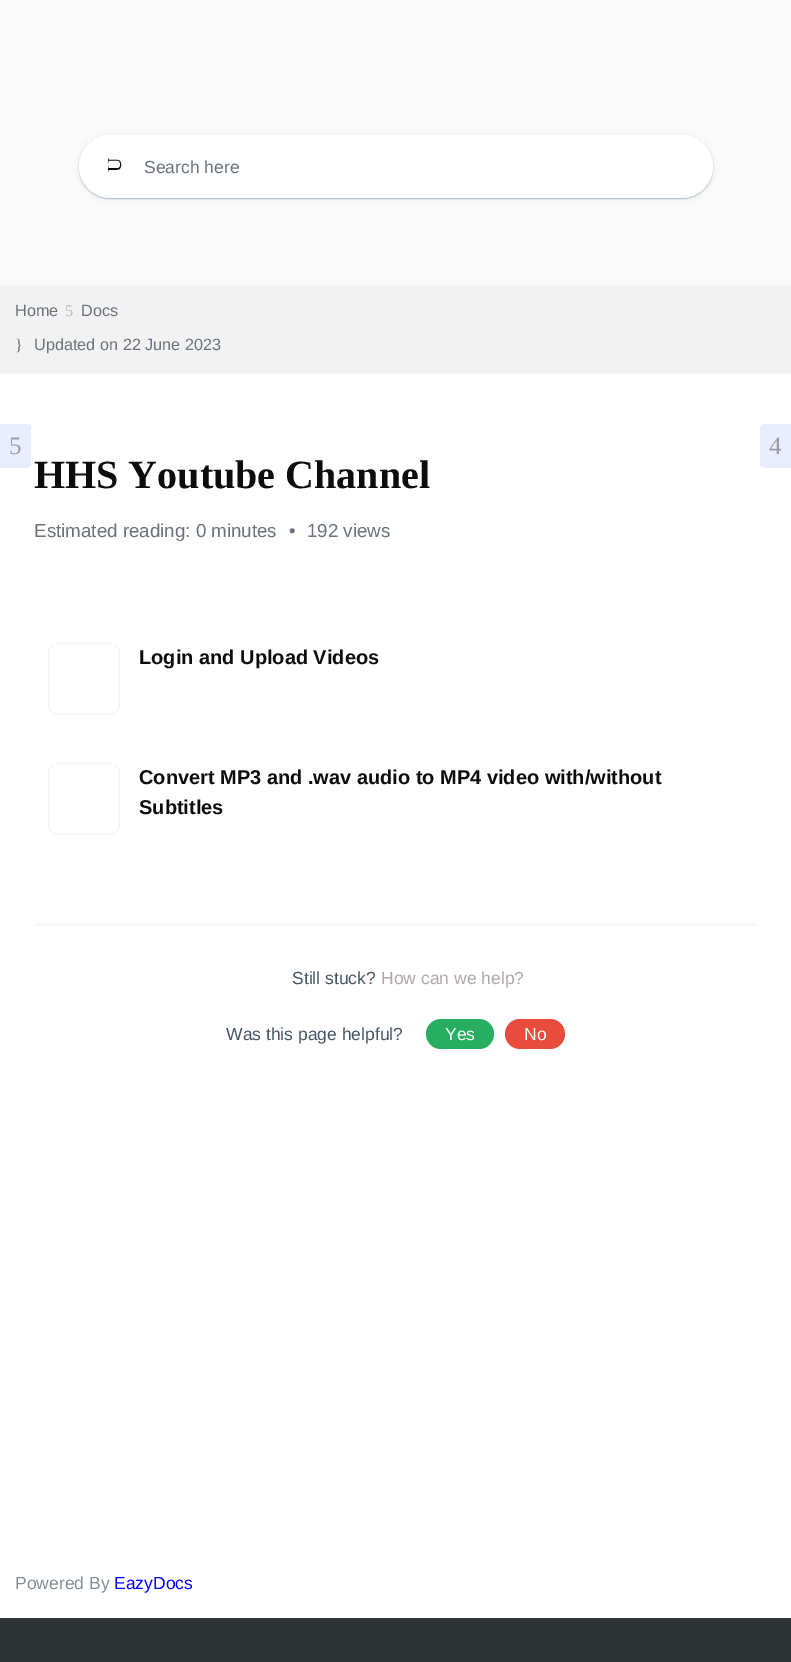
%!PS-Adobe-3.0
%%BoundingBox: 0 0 791 1662
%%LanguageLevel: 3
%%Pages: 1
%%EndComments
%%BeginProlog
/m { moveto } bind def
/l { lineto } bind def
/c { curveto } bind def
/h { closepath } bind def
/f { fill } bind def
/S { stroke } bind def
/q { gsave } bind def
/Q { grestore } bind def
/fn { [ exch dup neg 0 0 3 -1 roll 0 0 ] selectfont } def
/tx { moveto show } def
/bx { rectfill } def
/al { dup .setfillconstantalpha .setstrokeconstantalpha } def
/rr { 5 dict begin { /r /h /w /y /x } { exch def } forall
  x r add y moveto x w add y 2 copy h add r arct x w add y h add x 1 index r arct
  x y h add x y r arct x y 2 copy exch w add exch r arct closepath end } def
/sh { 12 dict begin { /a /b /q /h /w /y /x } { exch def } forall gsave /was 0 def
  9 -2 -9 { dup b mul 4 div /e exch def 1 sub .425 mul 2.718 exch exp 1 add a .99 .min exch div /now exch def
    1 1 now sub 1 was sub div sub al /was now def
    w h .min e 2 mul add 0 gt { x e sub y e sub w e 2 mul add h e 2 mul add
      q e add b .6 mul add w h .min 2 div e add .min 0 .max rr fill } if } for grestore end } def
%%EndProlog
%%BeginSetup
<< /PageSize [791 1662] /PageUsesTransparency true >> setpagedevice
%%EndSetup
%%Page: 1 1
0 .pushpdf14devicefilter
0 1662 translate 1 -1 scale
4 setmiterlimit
1 setgray
0 0 791 1662 bx
0.98 setgray
0 0 791 285 bx
0.235 0.251 0.263 setrgbcolor
79 136 634 63 31.5 3 0.1 sh
0.043 0.314 0.451 setrgbcolor
79 136 634 63 31.5 0.5 0.3 sh
1 setgray
79 135 634 63 31.5 rr f
/LiberationSerif-Regular 20 fn
0.047 0.051 0.055 setrgbcolor
q 121 172 translate -90 rotate 0 0 m (U) show Q
/LiberationSans-Regular 17.5 fn
0.416 0.451 0.486 setrgbcolor
(Search here) 144 173 tx
0.949 setgray
0 285 791 89 bx
/LiberationSans-Regular 16.25 fn
0.416 0.451 0.486 setrgbcolor
(Home) 15 316 tx
/LiberationSerif-Regular 16.25 fn
0.718 0.725 0.745 setrgbcolor
(5) 65 316 tx
/LiberationSans-Regular 16.25 fn
0.416 0.451 0.486 setrgbcolor
(Docs) 81 316 tx
/LiberationSerif-Regular 16.25 fn
(}) 15 350 tx
/LiberationSans-Regular 16.25 fn
(Updated on 22 June 2023) 34 350 tx
0.91 0.933 1 setrgbcolor
0 424 m 27 424 l 29 424 31 426 31 428 c 31 464 l 31 466 29 468 27 468 c 0 468 l h f
/LiberationSerif-Regular 25 fn
0.631 0.608 0.651 setrgbcolor
(5) 9 454 tx
0.91 0.933 1 setrgbcolor
764 424 m 791 424 l 791 468 l 764 468 l 762 468 760 466 760 464 c 760 428 l 760 426 762 424 764 424 c h f
0.631 0.608 0.651 setrgbcolor
(4) 769 454 tx
/LiberationSerif-Bold 40 fn
0.047 0.051 0.055 setrgbcolor
(HHS Youtube Channel) 34 488 tx
/LiberationSans-Regular 18.75 fn
0.416 0.451 0.486 setrgbcolor
(Estimated reading: 0 minutes) 34 537 tx
(•) 289 537 tx
(192 views) 307 537 tx
0.949 setgray
48.5 643.5 71 71 9.5 rr S
/LiberationSans-Bold 20 fn
0.047 0.051 0.055 setrgbcolor
(Login and Upload Videos) 139 664 tx
0.949 setgray
48.5 763.5 71 71 9.5 rr S
0.047 0.051 0.055 setrgbcolor
(Convert MP3 and .wav audio to MP4 video with/without) 139 784 tx
(Subtitles) 139 814 tx
0.91 0.941 0.945 setrgbcolor
34 924 724 1 bx
/LiberationSans-Regular 17.5 fn
0.259 0.329 0.4 setrgbcolor
(Still stuck?) 292 984 tx
0.69 0.651 0.651 setrgbcolor
(How can we help?) 381 984 tx
0.259 0.329 0.4 setrgbcolor
(Was this page helpful?) 226 1040 tx
0.153 0.682 0.376 setrgbcolor
426 1019 68 30 15 rr f
1 setgray
(Yes) 445 1040 tx
0.906 0.298 0.235 setrgbcolor
505 1019 60 30 15 rr f
1 setgray
(No) 524 1040 tx
0.518 0.553 0.584 setrgbcolor
(Powered By) 15 1589 tx
0 0 1 setrgbcolor
(EazyDocs) 114 1589 tx
0.18 0.2 0.212 setrgbcolor
0 1618 791 44 bx
.poppdf14devicefilter showpage
%%EOF
